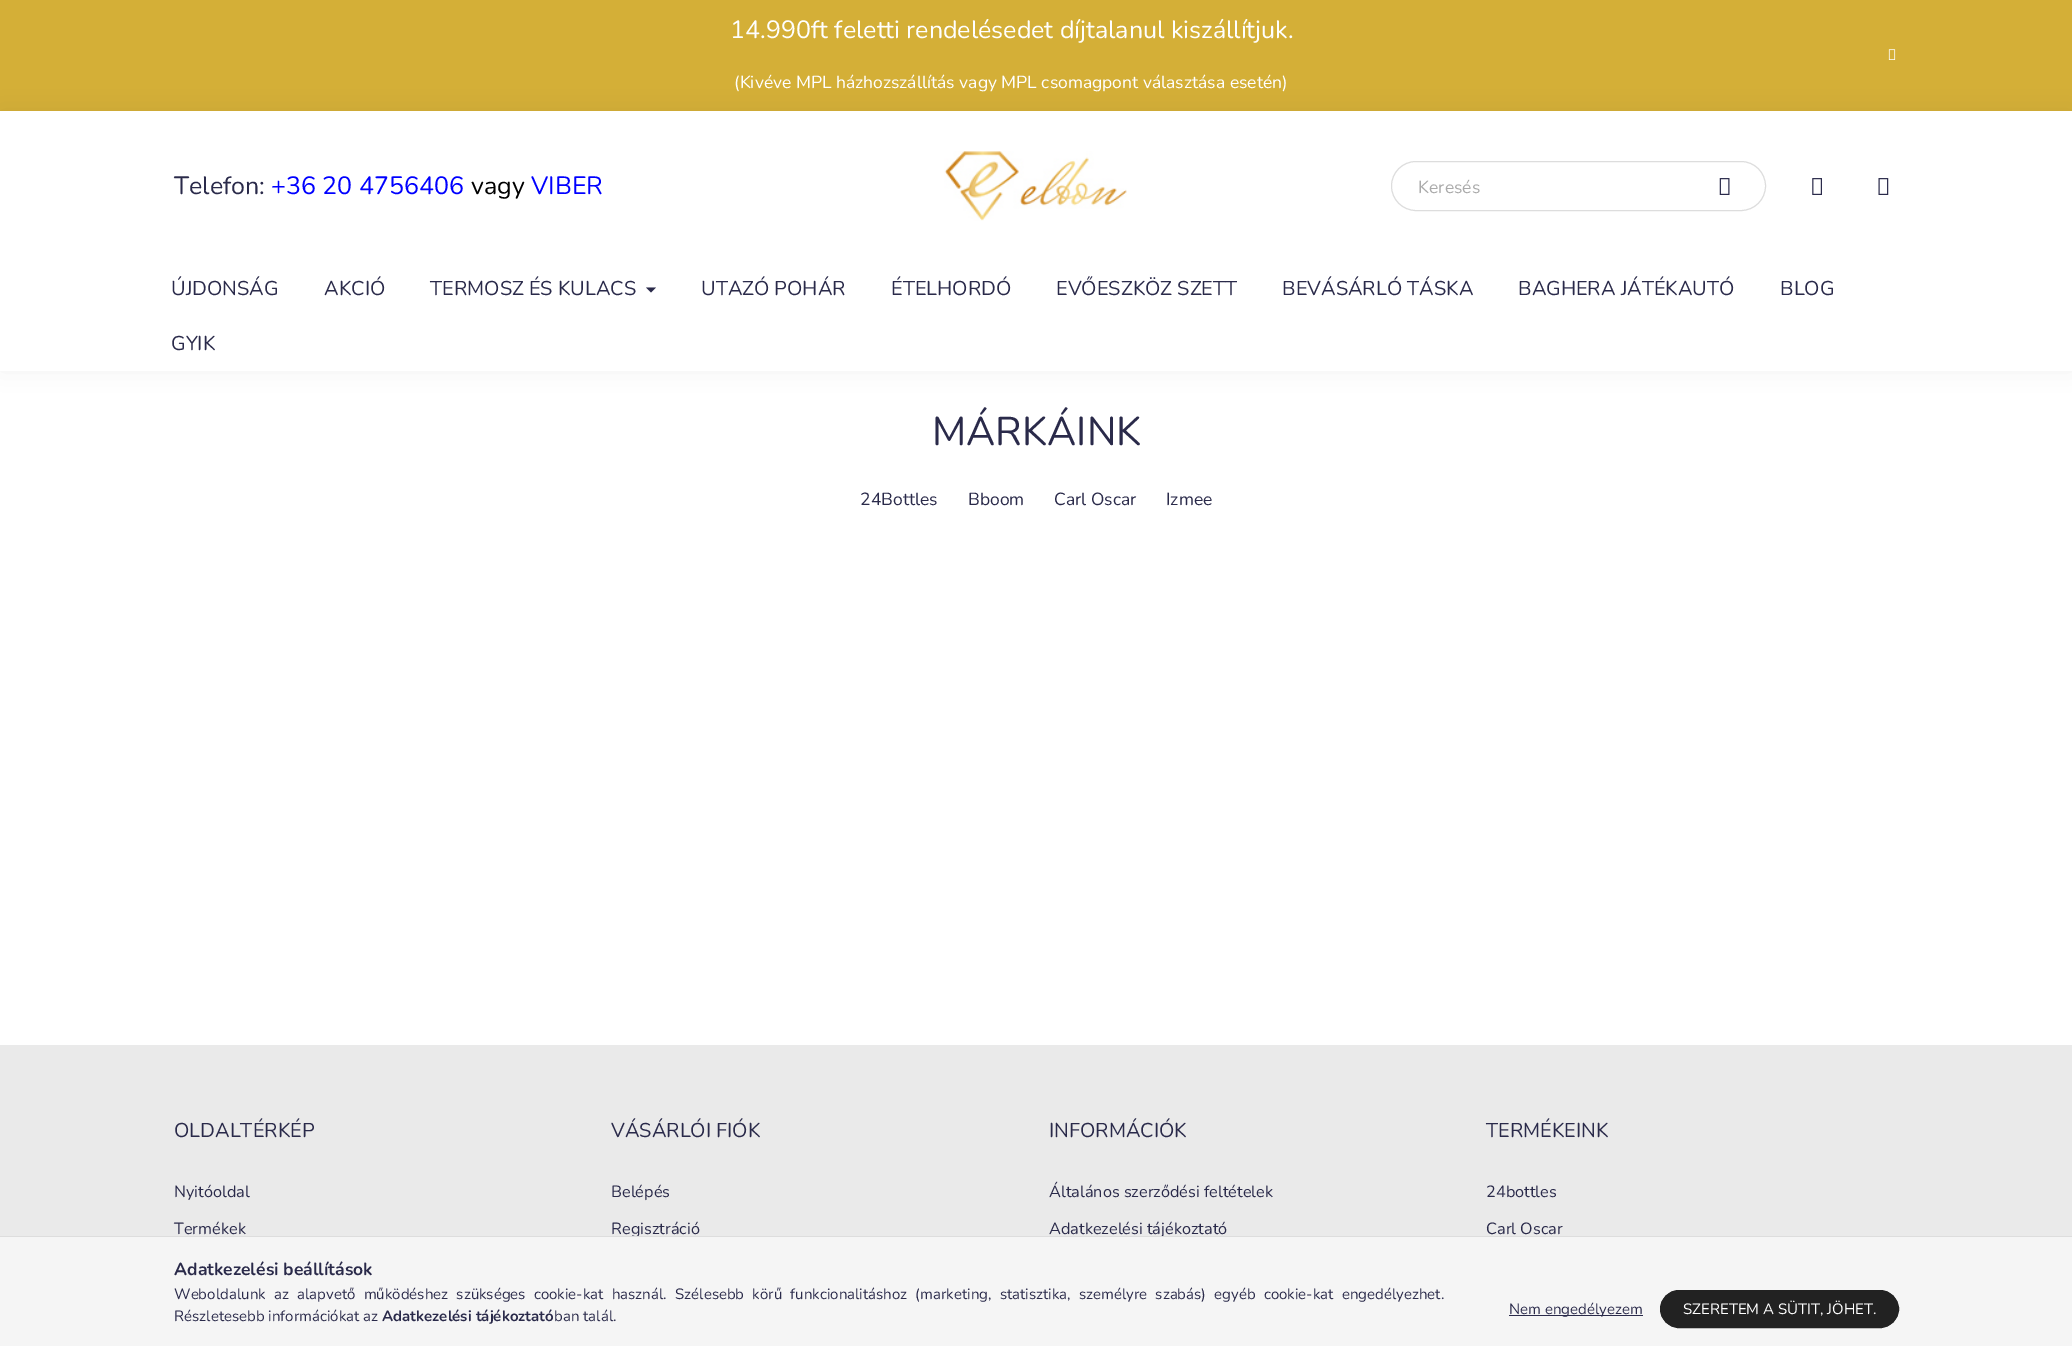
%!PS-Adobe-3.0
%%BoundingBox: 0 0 2072 1346
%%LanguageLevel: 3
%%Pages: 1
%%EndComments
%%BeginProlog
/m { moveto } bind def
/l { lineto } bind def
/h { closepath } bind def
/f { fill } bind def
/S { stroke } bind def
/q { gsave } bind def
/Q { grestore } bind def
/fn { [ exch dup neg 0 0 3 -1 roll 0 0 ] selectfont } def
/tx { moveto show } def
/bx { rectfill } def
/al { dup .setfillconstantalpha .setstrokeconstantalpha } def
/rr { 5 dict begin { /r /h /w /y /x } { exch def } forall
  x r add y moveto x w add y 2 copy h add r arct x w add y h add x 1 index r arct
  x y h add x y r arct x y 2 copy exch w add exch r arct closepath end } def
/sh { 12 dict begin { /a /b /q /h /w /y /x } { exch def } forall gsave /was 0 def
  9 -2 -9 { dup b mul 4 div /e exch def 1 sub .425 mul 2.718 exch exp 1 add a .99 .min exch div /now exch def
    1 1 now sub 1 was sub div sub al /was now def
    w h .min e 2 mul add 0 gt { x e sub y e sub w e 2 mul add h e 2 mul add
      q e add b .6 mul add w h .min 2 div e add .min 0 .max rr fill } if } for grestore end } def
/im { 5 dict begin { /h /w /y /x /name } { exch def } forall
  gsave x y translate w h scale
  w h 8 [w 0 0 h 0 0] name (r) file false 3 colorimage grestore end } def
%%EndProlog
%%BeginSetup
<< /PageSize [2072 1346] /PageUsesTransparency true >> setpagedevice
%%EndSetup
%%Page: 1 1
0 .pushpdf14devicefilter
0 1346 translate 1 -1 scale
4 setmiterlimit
1 setgray
0 0 2072 1346 bx
0.831 0.686 0.216 setrgbcolor
0 0 2072 111 bx
/Nunito-Regular 25 fn
1 setgray
(14.990ft feletti rendelésedet díjtalanul kiszállítjuk.) 730 38 tx
(image0.raw) 1888 49 8 11 im
/Nunito-Regular 17.5 fn
(\(Kivéve MPL házhozszállítás vagy MPL csomagpont választása esetén\)) 734 88 tx
0 setgray
0 111 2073 260 0 12.5 0.05 sh
1 setgray
0 111 2072 260 bx
/Nunito-Regular 25 fn
0.165 0.165 0.29 setrgbcolor
(Telefon:) 174 194 tx
0 0 1 setrgbcolor
(+36 20 4756406) 271 194 tx
0 setgray
(vagy) 471 194 tx
0 0 1 setrgbcolor
(VIBER) 531 194 tx
(image1.raw) 944 151 183 70 im
0.867 setgray
1391.5 161.5 374 49 24.5 rr S
/Nunito-Regular 17.5 fn
0.667 setgray
(Keresés) 1418 193 tx
(image2.raw) 1719 178 11 17 im
(image3.raw) 1812 178 10 17 im
(image4.raw) 1878 178 11 17 im
/Nunito-Regular 20 fn
0.165 0.165 0.29 setrgbcolor
(ÚJDONSÁG) 171 295 tx
(AKCIÓ) 324 295 tx
(TERMOSZ ÉS KULACS) 430 295 tx
646 287.5 m 656 287.5 l 651 292.5 l h f
(UTAZÓ POHÁR) 701 295 tx
(ÉTELHORDÓ) 891 295 tx
(EVŐESZKÖZ SZETT) 1056 295 tx
(BEVÁSÁRLÓ TÁSKA) 1282 295 tx
(BAGHERA JÁTÉKAUTÓ) 1518 295 tx
(BLOG) 1780 295 tx
(GYIK) 171 350 tx
/Nunito-Regular 40 fn
(MÁRKÁINK) 932 445 tx
/Nunito-Regular 17.5 fn
(24Bottles) 860 505 tx
(Bboom) 968 505 tx
(Carl Oscar) 1054 505 tx
(Izmee) 1166 505 tx
0.918 setgray
0 1045 2072 191 bx
/Nunito-Regular 20 fn
0.165 0.165 0.29 setrgbcolor
(OLDALTÉRKÉP) 174 1137 tx
/Nunito-Regular 16.25 fn
(Nyitóoldal) 174 1197 tx
(Termékek) 174 1234 tx
/Nunito-Regular 20 fn
(VÁSÁRLÓI FIÓK) 611 1137 tx
/Nunito-Regular 16.25 fn
(Belépés) 611 1197 tx
(Regisztráció) 611 1234 tx
/Nunito-Regular 20 fn
(INFORMÁCIÓK) 1049 1137 tx
/Nunito-Regular 16.25 fn
(Általános szerződési feltételek) 1049 1197 tx
(Adatkezelési tájékoztató) 1049 1234 tx
/Nunito-Regular 20 fn
(TERMÉKEINK) 1486 1137 tx
/Nunito-Regular 16.25 fn
(24bottles) 1486 1197 tx
(Carl Oscar) 1486 1234 tx
0.961 setgray
0 1237 2072 109 bx
0.867 setgray
0 1236 2072 1 bx
/Nunito-Bold 17.5 fn
0.165 0.165 0.29 setrgbcolor
(Adatkezelési beállítások) 174 1275 tx
/Nunito-Regular 15 fn
174 1299 m 4.4 0 32 (Weboldalunk az alapvető működéshez szükséges cookie-kat használ. Szélesebb körű funkcionalitáshoz \(marketing, statisztika, személyre szabás\) egyéb cookie-kat engedélyezhet.) widthshow
(Részletesebb információkat az) 174 1321 tx
/Nunito-Bold 15 fn
(Adatkezelési tájékoztató) 382 1321 tx
/Nunito-Regular 15 fn
(ban talál.) 554 1321 tx
1509 1315 134 1 bx
(Nem engedélyezem) 1509 1314 tx
0.133 setgray
1660.5 1290.5 238 37 18.5 rr q f Q
S
1 setgray
(SZERETEM A SÜTIT, JÖHET.) 1683 1314 tx
.poppdf14devicefilter showpage
%%EOF
